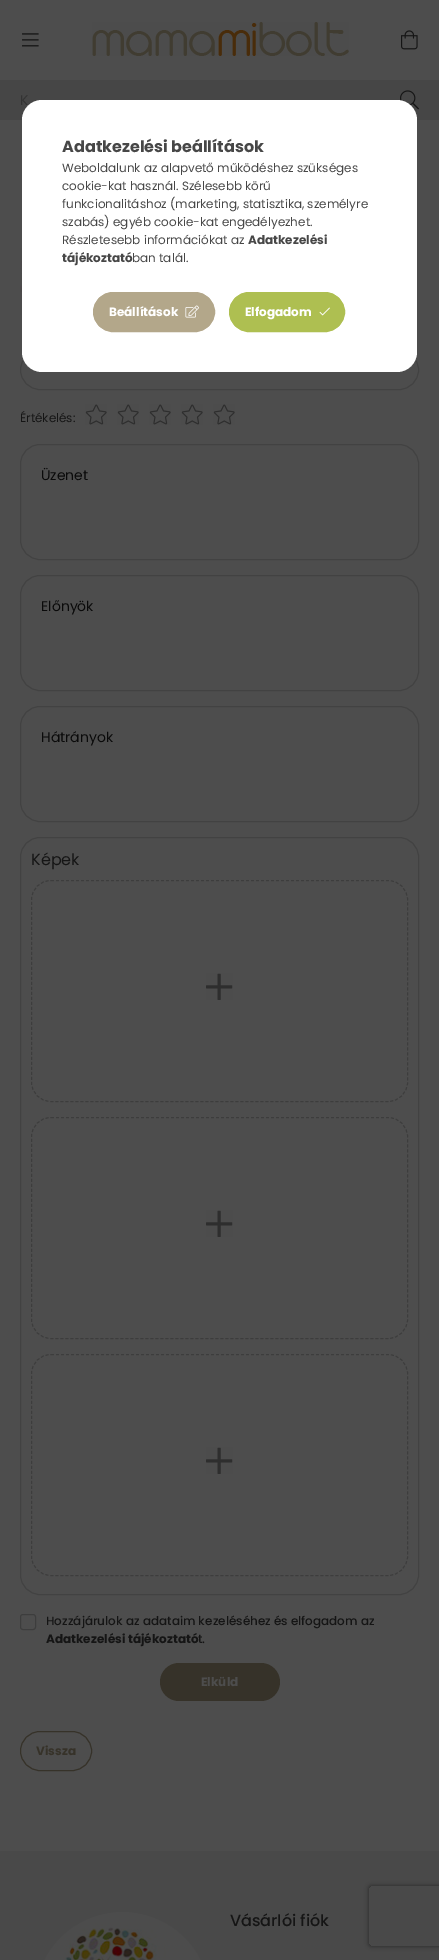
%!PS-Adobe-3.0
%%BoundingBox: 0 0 439 1960
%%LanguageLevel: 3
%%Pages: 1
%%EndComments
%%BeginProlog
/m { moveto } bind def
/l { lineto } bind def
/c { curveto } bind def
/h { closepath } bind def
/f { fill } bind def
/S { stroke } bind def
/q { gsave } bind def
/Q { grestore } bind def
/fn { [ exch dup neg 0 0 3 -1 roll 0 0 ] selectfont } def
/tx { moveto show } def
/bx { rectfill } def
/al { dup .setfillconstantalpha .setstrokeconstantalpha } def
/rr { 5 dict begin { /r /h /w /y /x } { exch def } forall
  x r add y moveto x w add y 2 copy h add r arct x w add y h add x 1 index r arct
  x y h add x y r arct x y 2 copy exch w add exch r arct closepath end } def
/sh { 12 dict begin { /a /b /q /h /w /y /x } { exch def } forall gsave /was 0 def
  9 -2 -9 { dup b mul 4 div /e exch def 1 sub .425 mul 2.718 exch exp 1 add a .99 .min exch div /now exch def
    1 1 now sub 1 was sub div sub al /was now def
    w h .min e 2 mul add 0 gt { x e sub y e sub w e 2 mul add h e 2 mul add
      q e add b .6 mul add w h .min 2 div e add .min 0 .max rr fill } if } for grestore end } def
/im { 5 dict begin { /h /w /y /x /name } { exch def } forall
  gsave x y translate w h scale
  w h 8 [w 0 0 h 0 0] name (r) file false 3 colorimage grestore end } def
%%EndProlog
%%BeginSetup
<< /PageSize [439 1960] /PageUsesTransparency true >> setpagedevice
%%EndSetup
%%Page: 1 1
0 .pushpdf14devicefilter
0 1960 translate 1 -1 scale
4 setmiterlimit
0.302 setgray
0 0 439 1960 bx
(image0.raw) 22 33 17 14 im
(image1.raw) 92 22 257 34 im
(image2.raw) 401 30 17 20 im
0.275 setgray
0 80 439 40 bx
/Poppins-Regular 14 fn
0.2 setgray
(K) 20 105 tx
(image3.raw) 400 90 19 20 im
(image4.raw) 20 248 2 67 im
0.259 setgray
20.5 350.5 398 39 19.5 rr S
/Poppins-Regular 12 fn
0.082 setgray
(Értékelés:) 20 422 tx
(image5.raw) 85 404 22 21 im
(image5.raw) 117 404 22 21 im
(image5.raw) 149 404 22 21 im
(image5.raw) 181 404 22 21 im
(image5.raw) 213 404 22 21 im
0.259 setgray
20.5 444.5 398 115 19.5 rr S
/Poppins-Regular 14 fn
0.039 setgray
(Üzenet) 41 480 tx
0.259 setgray
20.5 575.5 398 115 19.5 rr S
0.039 setgray
(Előnyök) 41 611 tx
0.259 setgray
20.5 706.5 398 115 19.5 rr S
0.039 setgray
(Hátrányok) 41 742 tx
0.259 setgray
20.5 837.5 398 757 19.5 rr S
/Poppins-Regular 16 fn
0.082 setgray
(Képek) 31 865 tx
0.239 setgray
[3 2] 0 setdash
51 880.5 m 388 880.5 l 399 880.5 407.5 889 407.5 900 c 407.5 1082 l 407.5 1093 399 1101.5 388 1101.5 c 51 1101.5 l 40 1101.5 31.5 1093 31.5 1082 c 31.5 900 l 31.5 889 40 880.5 51 880.5 c h S
(image6.raw) 206 973 27 27 im
51 1117.5 m 388 1117.5 l 399 1117.5 407.5 1126 407.5 1137 c 407.5 1319 l 407.5 1330 399 1338.5 388 1338.5 c 51 1338.5 l 40 1338.5 31.5 1330 31.5 1319 c 31.5 1137 l 31.5 1126 40 1117.5 51 1117.5 c h S
(image6.raw) 206 1210 27 27 im
51 1354.5 m 388 1354.5 l 399 1354.5 407.5 1363 407.5 1374 c 407.5 1556 l 407.5 1567 399 1575.5 388 1575.5 c 51 1575.5 l 40 1575.5 31.5 1567 31.5 1556 c 31.5 1374 l 31.5 1363 40 1354.5 51 1354.5 c h S
(image6.raw) 206 1447 27 27 im
[] 0 setdash
20.5 1614.5 15 15 2.5 rr S
/Poppins-Medium 12 fn
0.082 setgray
(Hozzájárulok az adataim kezeléséhez és elfogadom az) 46 1625 tx
/Poppins-Bold 12 fn
(Adatkezelési tájékoztató) 46 1643 tx
/Poppins-Medium 12 fn
(t.) 198 1643 tx
0.212 0.196 0.161 setrgbcolor
160 1663 120 38 19 rr f
/Poppins-Bold 12 fn
0.302 setgray
(Elküld) 201 1686 tx
0.286 setgray
0 1851 439 109 bx
q
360 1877 m 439 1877 l 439 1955 l 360 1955 l h 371 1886 m 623 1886 l 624 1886 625 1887 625 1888 c 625 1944 l 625 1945 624 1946 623 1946 c 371 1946 l 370 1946 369 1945 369 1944 c 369 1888 l 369 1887 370 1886 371 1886 c h eoclip newpath
0.149 setgray
369 1886 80 60 2 2.5 1 sh
Q
0.212 0.196 0.161 setrgbcolor
20.5 1731.5 71 39 19.5 rr S
(Vissza) 36 1755 tx
(image7.raw) 44 1912 157 48 im
/Poppins-Medium 16 fn
0.082 setgray
(Vásárlói fiók) 230 1926 tx
1 setgray
22 100 395 272 20 rr f
/Poppins-Bold 16 fn
0.278 setgray
(Adatkezelési beállítások) 62 152 tx
/Poppins-Regular 12 fn
(Weboldalunk az alapvető működéshez szükséges) 62 172 tx
(cookie-kat használ. Szélesebb körű) 62 190 tx
(funkcionalitáshoz \(marketing, statisztika, személyre) 62 208 tx
(szabás\) egyéb cookie-kat engedélyezhet.) 62 226 tx
(Részletesebb információkat az) 62 244 tx
/Poppins-Bold 12 fn
(Adatkezelési) 248 244 tx
(tájékoztató) 62 262 tx
/Poppins-Regular 12 fn
(ban talál.) 132 262 tx
0.702 0.655 0.541 setrgbcolor
93.5 292.5 121 39 19.5 rr q f Q
S
/Poppins-Bold 12 fn
1 setgray
(Beállítások) 109 316 tx
(image8.raw) 185 305 14 13 im
0.682 0.749 0.318 setrgbcolor
229.5 292.5 115 39 19.5 rr q f Q
S
1 setgray
(Elfogadom) 245 316 tx
(image9.raw) 319 307 11 9 im
.poppdf14devicefilter showpage
%%EOF
